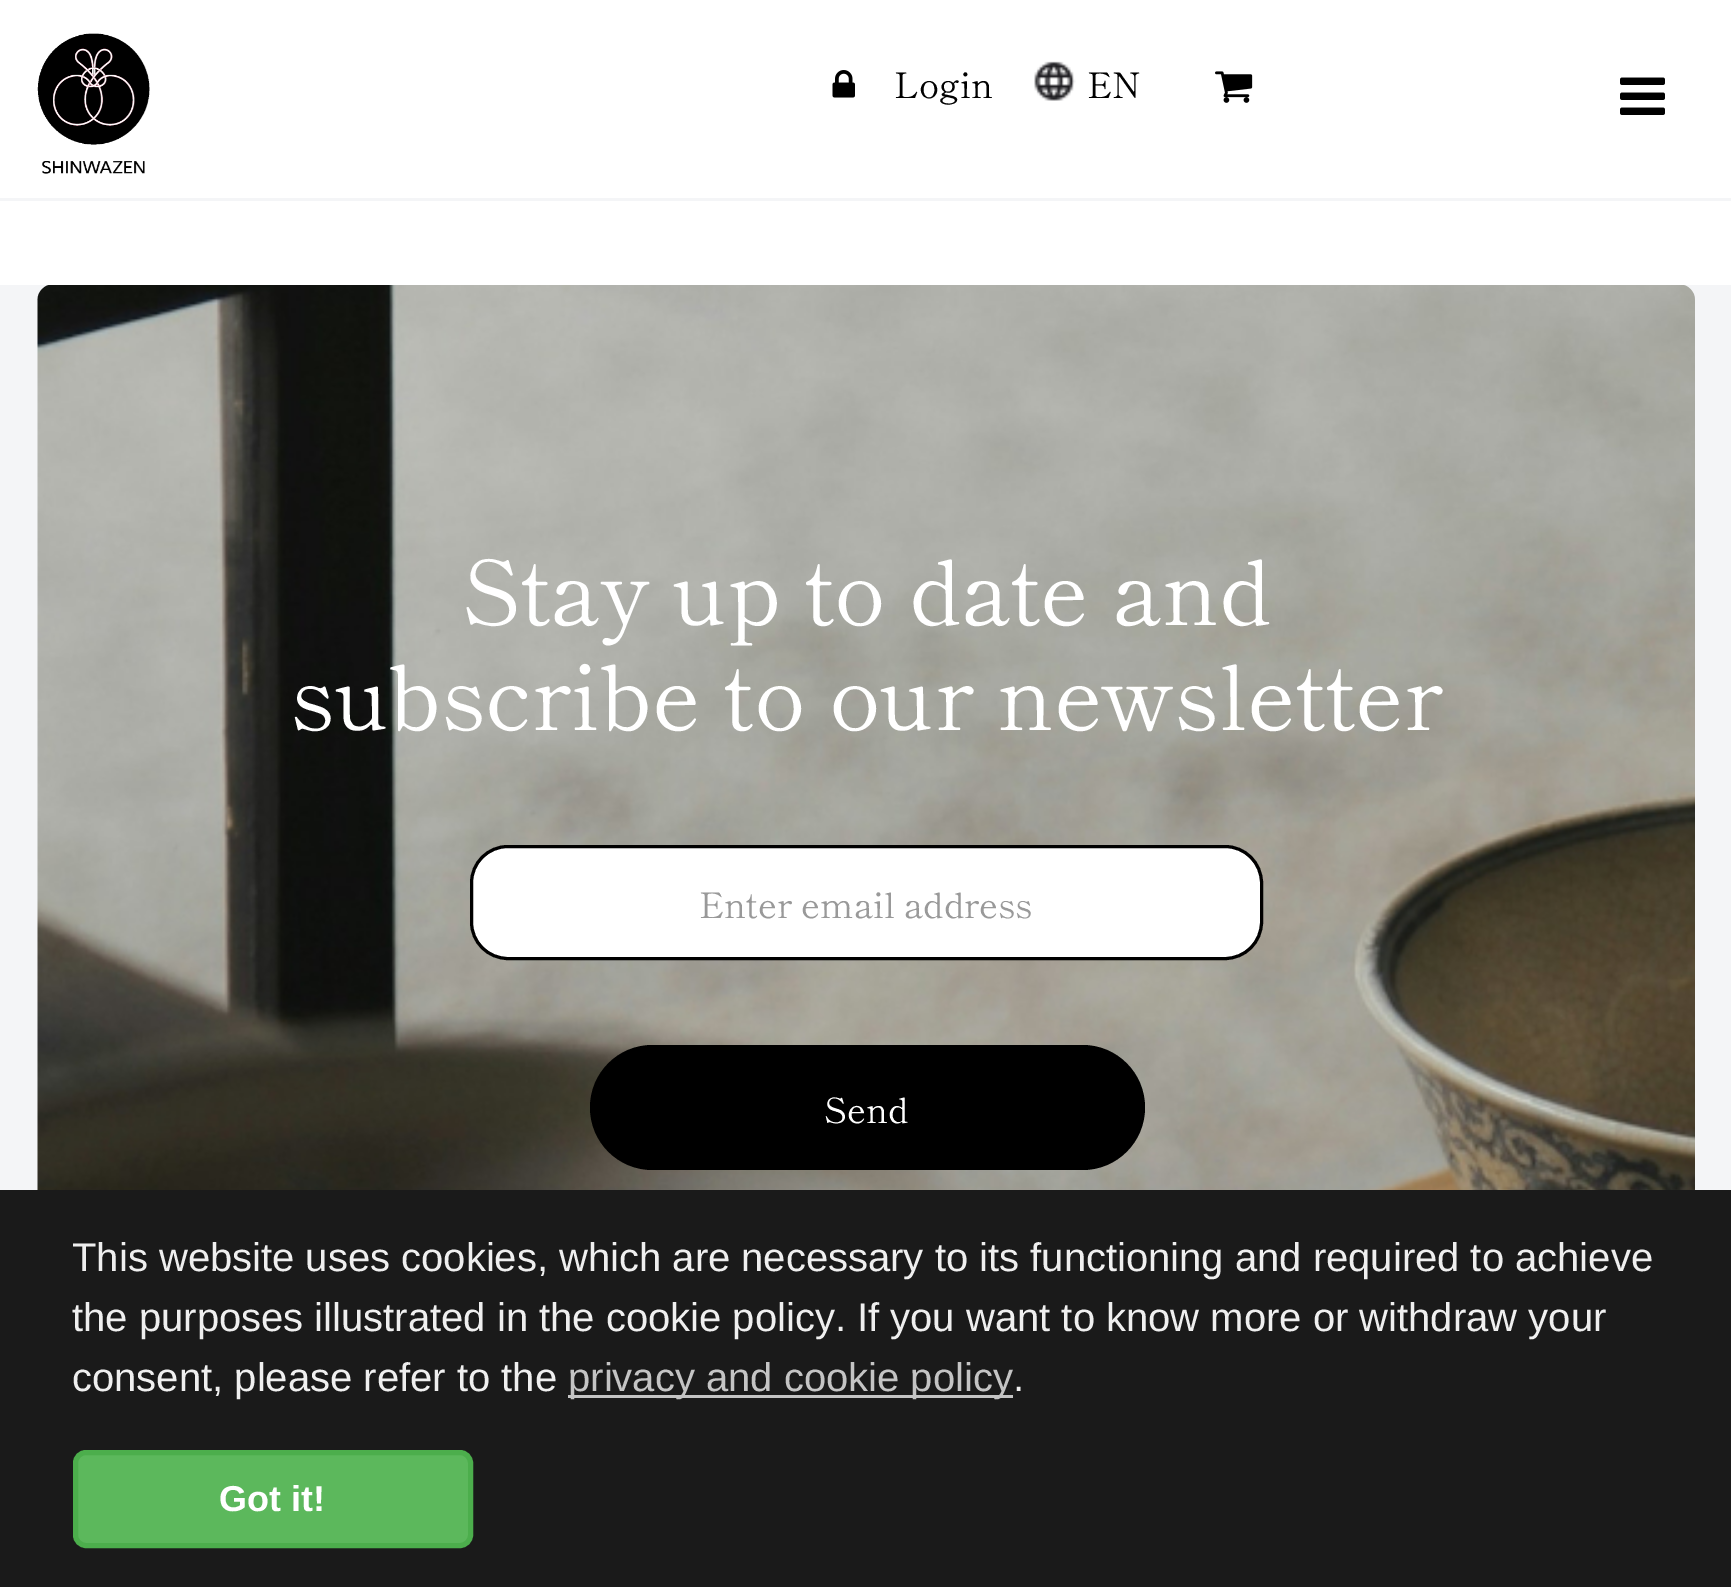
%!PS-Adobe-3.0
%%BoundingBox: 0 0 1731 1587
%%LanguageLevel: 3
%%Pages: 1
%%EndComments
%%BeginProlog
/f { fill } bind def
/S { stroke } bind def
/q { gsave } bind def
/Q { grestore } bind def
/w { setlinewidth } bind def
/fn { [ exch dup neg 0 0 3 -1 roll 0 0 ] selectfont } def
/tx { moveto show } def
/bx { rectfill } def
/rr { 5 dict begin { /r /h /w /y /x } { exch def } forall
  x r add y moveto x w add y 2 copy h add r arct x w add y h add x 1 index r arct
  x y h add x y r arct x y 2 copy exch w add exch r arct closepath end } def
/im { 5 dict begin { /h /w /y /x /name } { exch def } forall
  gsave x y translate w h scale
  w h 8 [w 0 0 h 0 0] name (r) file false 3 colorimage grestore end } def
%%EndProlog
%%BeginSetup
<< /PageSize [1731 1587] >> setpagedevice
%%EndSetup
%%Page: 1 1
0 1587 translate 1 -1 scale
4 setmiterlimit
0.957 0.961 0.969 setrgbcolor
0 0 1731 1587 bx
1 setgray
0 0 1731 198 bx
(image0.raw) 37 33 113 141 im
(image1.raw) 832 70 23 28 im
/ShipporiMinchoB1-Regular 35 fn
0 setgray
(Login) 894 98 tx
(image2.raw) 1034 61 42 40 im
(EN) 1087 98 tx
(image3.raw) 1215 71 38 32 im
(image4.raw) 1620 77 45 38 im
1 setgray
0 201 1731 84 bx
(image5.raw) 37 285 1658 905 im
/ShipporiMinchoB1-Regular 90 fn
(Stay up to date and) 462 625 tx
(subscribe to our newsletter) 290 730 tx
471.5 846.5 790 112 36.5 rr q f Q
0 setgray
3 w
S
/ShipporiMinchoB1-Regular 35 fn
0.6 setgray
(Enter email address) 699 918 tx
0 setgray
590 1045 555 125 62.5 rr f
1 setgray
(Send) 824 1123 tx
0.102 setgray
0 1190 1731 397 bx
/LiberationSans-Regular 40 fn
0.937 setgray
(This website uses cookies, which are necessary to its functioning and required to achieve) 72 1271 tx
(the purposes illustrated in the cookie policy. If you want to know more or withdraw your) 72 1331 tx
(consent, please refer to the) 72 1391 tx
0.769 setgray
568 1395 445 3 bx
(privacy and cookie policy) 568 1391 tx
0.937 setgray
(.) 1013 1391 tx
0.361 0.722 0.361 setrgbcolor
75.5 1452.5 395 93 10.5 rr q f Q
0.298 0.682 0.298 setrgbcolor
5 w
S
/LiberationSans-Bold 36 fn
1 setgray
(Got it!) 219 1511 tx
showpage
%%EOF
